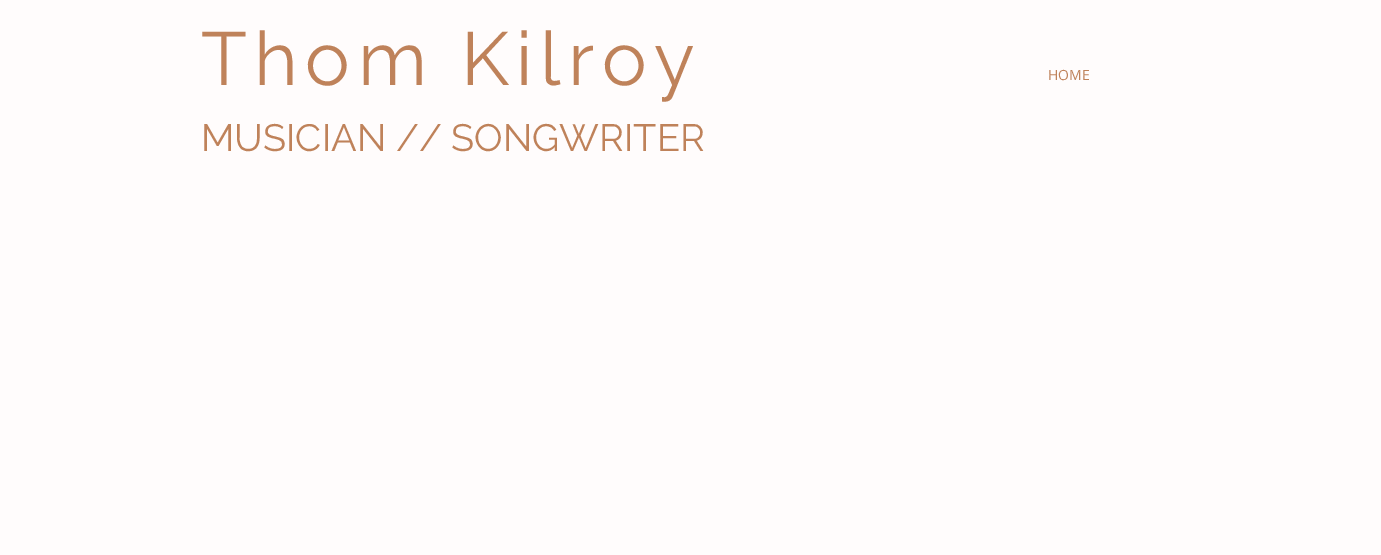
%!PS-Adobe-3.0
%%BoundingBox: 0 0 1381 555
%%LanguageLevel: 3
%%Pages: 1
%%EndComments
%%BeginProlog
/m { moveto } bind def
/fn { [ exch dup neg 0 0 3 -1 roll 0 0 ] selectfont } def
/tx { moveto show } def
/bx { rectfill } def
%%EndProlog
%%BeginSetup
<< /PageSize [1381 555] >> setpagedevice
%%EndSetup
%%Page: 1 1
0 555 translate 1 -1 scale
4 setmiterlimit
1 0.988 0.988 setrgbcolor
0 0 1381 555 bx
/Raleway-Regular 75 fn
0.749 0.51 0.353 setrgbcolor
201 85 m 7.5 0 (Thom Kilroy) ashow
/Raleway-Regular 38 fn
(MUSICIAN // SONGWRITER) 201 151 tx
/OpenSans-Regular 14 fn
(HOME) 1048 80 tx
showpage
%%EOF
